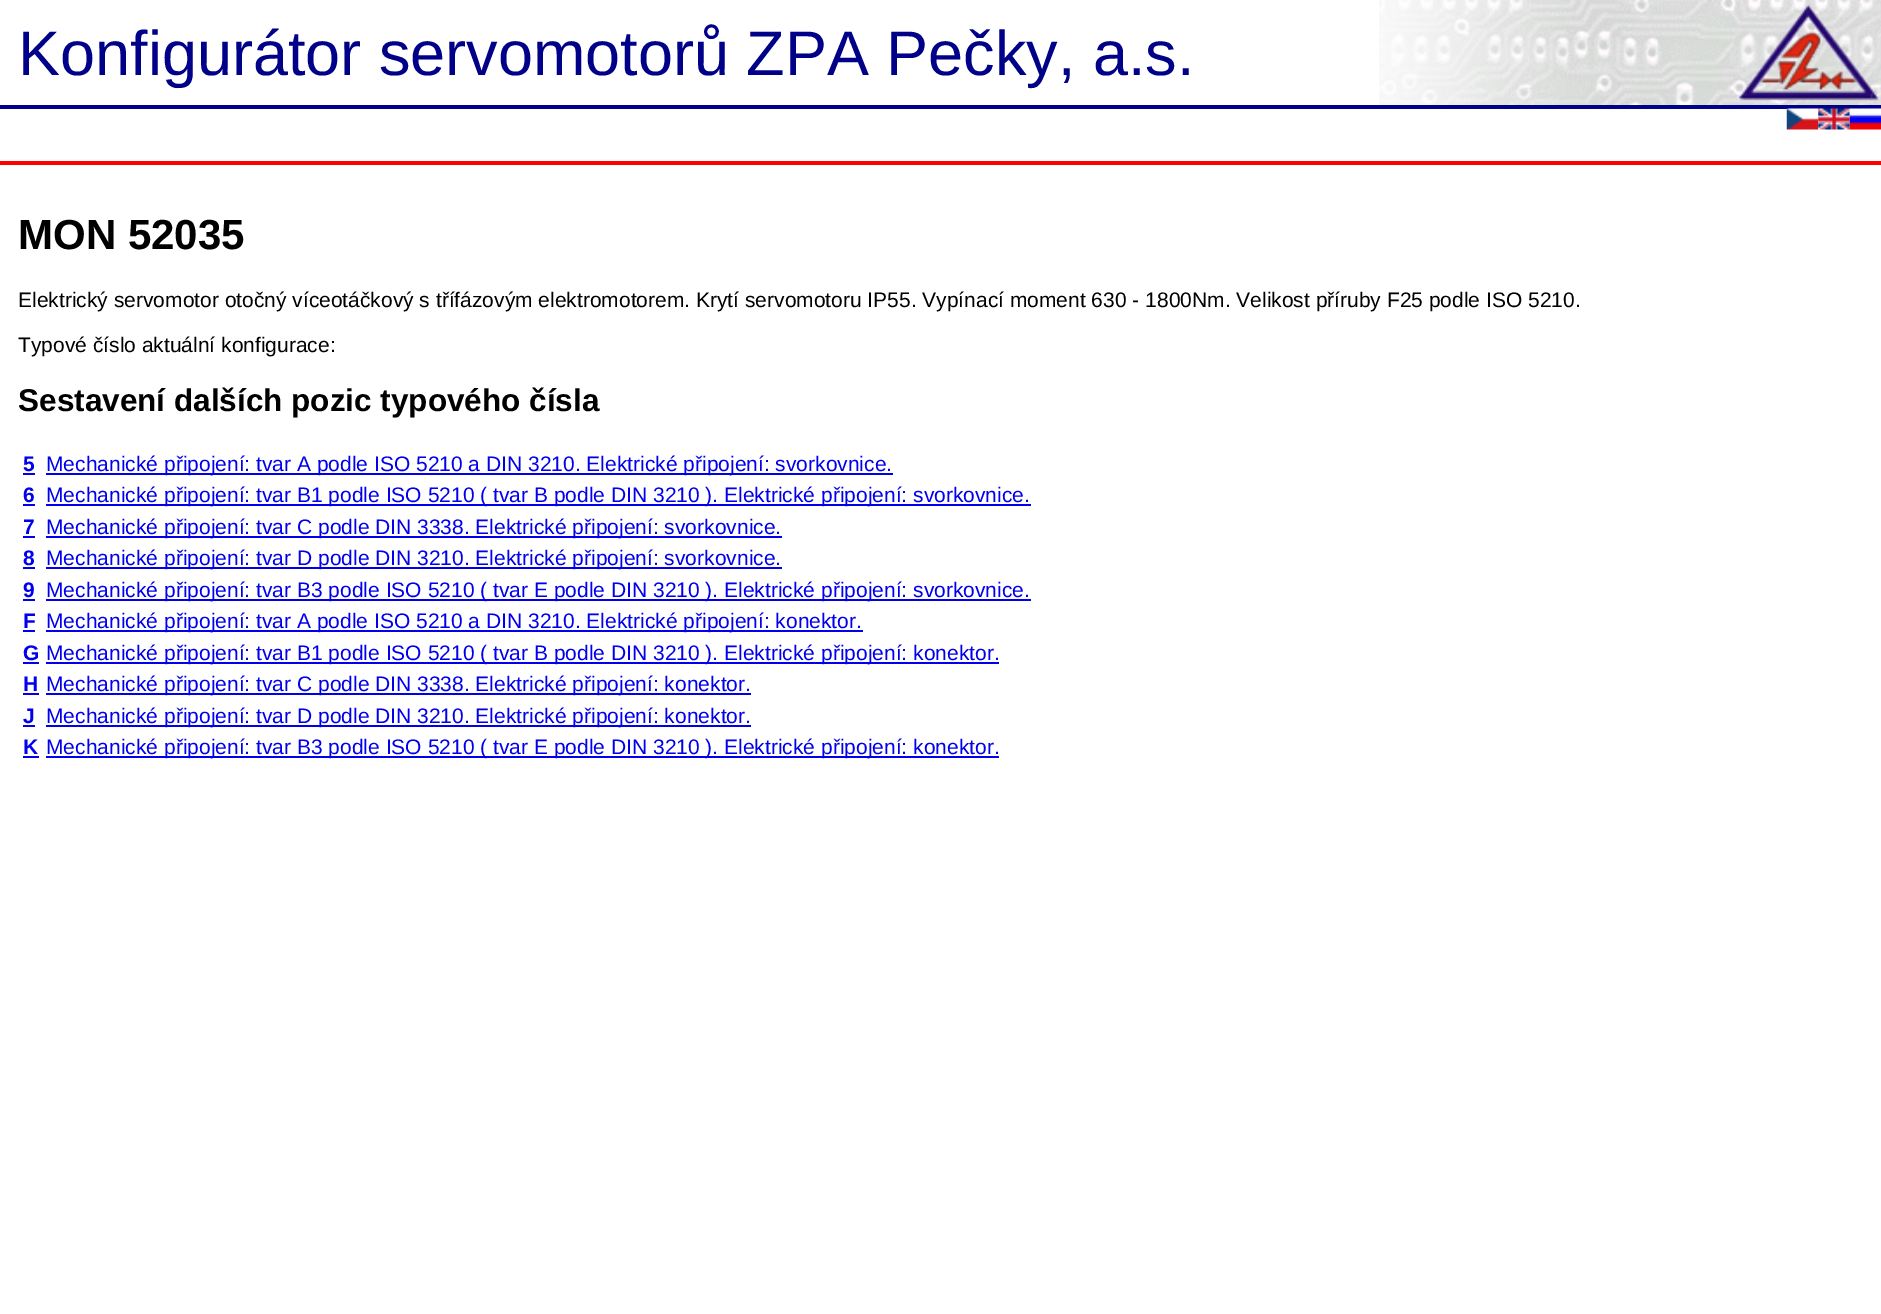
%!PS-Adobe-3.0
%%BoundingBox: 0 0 1881 1314
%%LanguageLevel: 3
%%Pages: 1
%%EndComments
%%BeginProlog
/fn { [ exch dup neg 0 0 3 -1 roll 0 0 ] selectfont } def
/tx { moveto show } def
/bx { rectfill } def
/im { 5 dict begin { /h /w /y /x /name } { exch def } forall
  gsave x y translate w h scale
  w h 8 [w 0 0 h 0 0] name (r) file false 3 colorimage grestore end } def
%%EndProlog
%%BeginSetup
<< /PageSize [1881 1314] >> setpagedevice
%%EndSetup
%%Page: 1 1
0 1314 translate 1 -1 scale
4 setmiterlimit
1 setgray
0 0 1881 1314 bx
(image0.raw) 1379 0 502 105 im
0 0 0.533 setrgbcolor
0 105 1881 4 bx
/LiberationSans-Regular 63 fn
(Konfigurátor servomotorů ZPA Pečky, a.s.) 18 75 tx
1 0 0 setrgbcolor
0 161 1881 4 bx
(image1.raw) 1786 108 33 22 im
(image2.raw) 1818 108 32 22 im
(image3.raw) 1849 108 32 22 im
/LiberationSans-Bold 42 fn
0 setgray
(MON 52035) 18 249 tx
/LiberationSans-Regular 21 fn
(Elektrický servomotor otočný víceotáčkový s třífázovým elektromotorem. Krytí servomotoru IP55. Vypínací moment 630 - 1800Nm. Velikost příruby F25 podle ISO 5210.) 18 307 tx
(Typové číslo aktuální konfigurace:) 18 352 tx
/LiberationSans-Bold 31.5 fn
(Sestavení dalších pozic typového čísla) 18 411 tx
/LiberationSans-Bold 21 fn
0 0 0.933 setrgbcolor
(5) 23 471 tx
23 473 12 2 bx
46 473 847 2 bx
/LiberationSans-Regular 21 fn
(Mechanické připojení: tvar A podle ISO 5210 a DIN 3210. Elektrické připojení: svorkovnice.) 46 471 tx
/LiberationSans-Bold 21 fn
(6) 23 502 tx
23 504 12 2 bx
46 504 985 2 bx
/LiberationSans-Regular 21 fn
(Mechanické připojení: tvar B1 podle ISO 5210 \( tvar B podle DIN 3210 \). Elektrické připojení: svorkovnice.) 46 502 tx
/LiberationSans-Bold 21 fn
(7) 23 534 tx
23 536 12 2 bx
46 536 736 2 bx
/LiberationSans-Regular 21 fn
(Mechanické připojení: tvar C podle DIN 3338. Elektrické připojení: svorkovnice.) 46 534 tx
/LiberationSans-Bold 21 fn
(8) 23 565 tx
23 567 12 2 bx
46 567 736 2 bx
/LiberationSans-Regular 21 fn
(Mechanické připojení: tvar D podle DIN 3210. Elektrické připojení: svorkovnice.) 46 565 tx
/LiberationSans-Bold 21 fn
(9) 23 597 tx
23 599 12 2 bx
46 599 985 2 bx
/LiberationSans-Regular 21 fn
(Mechanické připojení: tvar B3 podle ISO 5210 \( tvar E podle DIN 3210 \). Elektrické připojení: svorkovnice.) 46 597 tx
/LiberationSans-Bold 21 fn
(F) 23 628 tx
23 630 12 2 bx
46 630 817 2 bx
/LiberationSans-Regular 21 fn
(Mechanické připojení: tvar A podle ISO 5210 a DIN 3210. Elektrické připojení: konektor.) 46 628 tx
/LiberationSans-Bold 21 fn
(G) 23 660 tx
23 662 16 2 bx
46 662 953 2 bx
/LiberationSans-Regular 21 fn
(Mechanické připojení: tvar B1 podle ISO 5210 \( tvar B podle DIN 3210 \). Elektrické připojení: konektor.) 46 660 tx
/LiberationSans-Bold 21 fn
(H) 23 691 tx
23 693 16 2 bx
46 693 705 2 bx
/LiberationSans-Regular 21 fn
(Mechanické připojení: tvar C podle DIN 3338. Elektrické připojení: konektor.) 46 691 tx
/LiberationSans-Bold 21 fn
(J) 23 723 tx
23 725 12 2 bx
46 725 705 2 bx
/LiberationSans-Regular 21 fn
(Mechanické připojení: tvar D podle DIN 3210. Elektrické připojení: konektor.) 46 723 tx
/LiberationSans-Bold 21 fn
(K) 23 754 tx
23 756 16 2 bx
46 756 953 2 bx
/LiberationSans-Regular 21 fn
(Mechanické připojení: tvar B3 podle ISO 5210 \( tvar E podle DIN 3210 \). Elektrické připojení: konektor.) 46 754 tx
showpage
%%EOF
